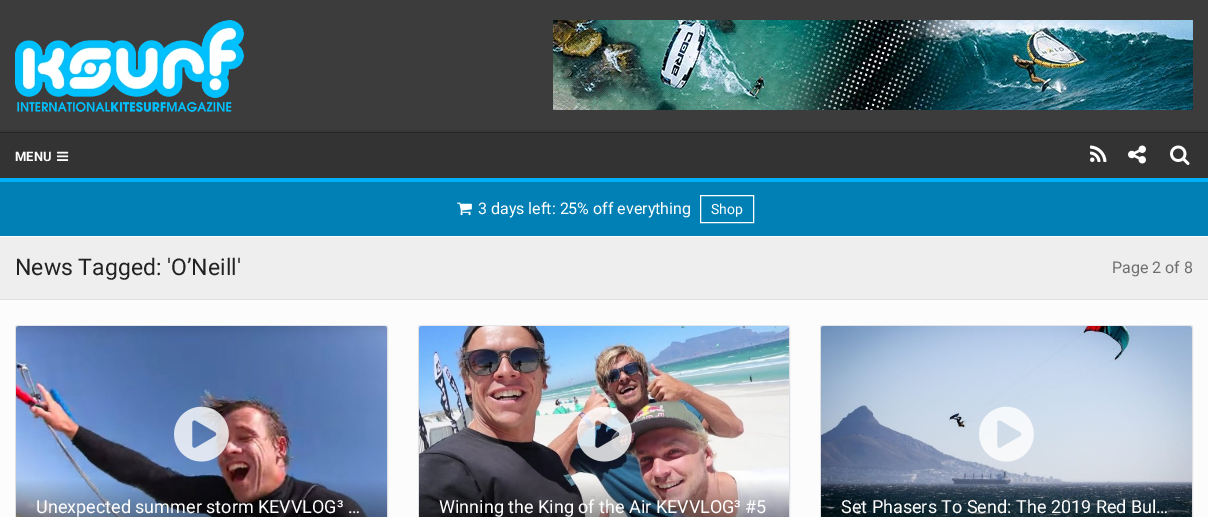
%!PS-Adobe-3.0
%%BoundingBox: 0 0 1208 517
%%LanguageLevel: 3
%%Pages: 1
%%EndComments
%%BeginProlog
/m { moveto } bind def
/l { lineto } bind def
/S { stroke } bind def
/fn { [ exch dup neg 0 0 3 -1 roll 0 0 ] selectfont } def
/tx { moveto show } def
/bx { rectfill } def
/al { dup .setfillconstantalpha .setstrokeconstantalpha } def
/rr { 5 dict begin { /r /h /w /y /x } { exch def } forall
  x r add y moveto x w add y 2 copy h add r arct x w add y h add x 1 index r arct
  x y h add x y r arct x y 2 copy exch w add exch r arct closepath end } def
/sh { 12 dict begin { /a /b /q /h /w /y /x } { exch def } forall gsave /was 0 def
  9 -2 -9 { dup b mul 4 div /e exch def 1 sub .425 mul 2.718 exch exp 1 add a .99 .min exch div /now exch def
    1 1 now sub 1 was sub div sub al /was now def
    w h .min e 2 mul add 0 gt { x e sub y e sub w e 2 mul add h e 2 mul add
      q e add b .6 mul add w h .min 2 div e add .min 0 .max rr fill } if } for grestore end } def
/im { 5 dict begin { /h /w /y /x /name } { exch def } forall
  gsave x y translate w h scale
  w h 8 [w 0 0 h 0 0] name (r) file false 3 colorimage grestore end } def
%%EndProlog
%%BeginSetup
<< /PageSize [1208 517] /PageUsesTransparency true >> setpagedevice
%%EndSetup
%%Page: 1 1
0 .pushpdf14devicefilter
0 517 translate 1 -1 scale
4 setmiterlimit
0.988 setgray
0 0 1208 517 bx
0.235 setgray
0 0 1208 132 bx
0.176 setgray
0 132 1208 1 bx
(image0.raw) 15 20 229 92 im
(image1.raw) 553 20 640 90 im
0.106 setgray
0 134 1208 49 0 2.5 1 sh
0.2 setgray
0 133 1208 45 bx
0 0.69 0.976 setrgbcolor
0 178 1208 4 bx
/Roboto-Bold 13 fn
1 setgray
(MENU) 15 161 tx
(image2.raw) 57 151 12 10 im
(image3.raw) 1090 145 17 17 im
(image4.raw) 1128 145 18 19 im
(image5.raw) 1170 145 20 20 im
0 0.502 0.71 setrgbcolor
0 182 1208 54 bx
(image6.raw) 457 202 15 14 im
/Roboto-Regular 16 fn
1 setgray
(3 days left: 25% off everything) 478 214 tx
700.5 195.5 53 27 rectstroke
/Roboto-Regular 14 fn
(Shop) 711 214 tx
0.933 setgray
0 237 1208 62 bx
1 setgray
0 236 1208 1 bx
0.886 setgray
0 299 1208 1 bx
/Roboto-Regular 23 fn
0.133 setgray
(News Tagged: 'O’Neill') 15 275 tx
/Roboto-Regular 16 fn
0.435 setgray
(Page 2 of 8) 1112 273 tx
0.898 0.902 0.914 setrgbcolor
16 326 m 18 325.5 l 385 325.5 l 387 326 l S
0.875 0.878 0.894 setrgbcolor
387 326 m 387.5 328 l 387.5 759 l 387 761 l S
16 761 m 15.5 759 l 15.5 328 l 16 326 l S
(image7.raw) 16 326 371 191 im
(image8.raw) 174 406 55 56 im
/Roboto-Regular 18 fn
1 setgray
(Unexpected summer storm KEVVLOG³ …) 36 513 tx
0.898 0.902 0.914 setrgbcolor
419 326 m 421 325.5 l 787 325.5 l 789 326 l S
0.875 0.878 0.894 setrgbcolor
789 326 m 789.5 328 l 789.5 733 l 789 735 l S
419 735 m 418.5 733 l 418.5 328 l 419 326 l S
(image9.raw) 419 326 370 191 im
(image10.raw) 577 406 55 56 im
1 setgray
(Winning the King of the Air KEVVLOG³ #5) 439 513 tx
0.898 0.902 0.914 setrgbcolor
821 326 m 823 325.5 l 1190 325.5 l 1192 326 l S
0.875 0.878 0.894 setrgbcolor
1192 326 m 1192.5 328 l 1192.5 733 l 1192 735 l S
821 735 m 820.5 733 l 820.5 328 l 821 326 l S
(image11.raw) 821 326 371 191 im
(image12.raw) 979 406 55 56 im
1 setgray
(Set Phasers To Send: The 2019 Red Bul…) 841 513 tx
.poppdf14devicefilter showpage
%%EOF
